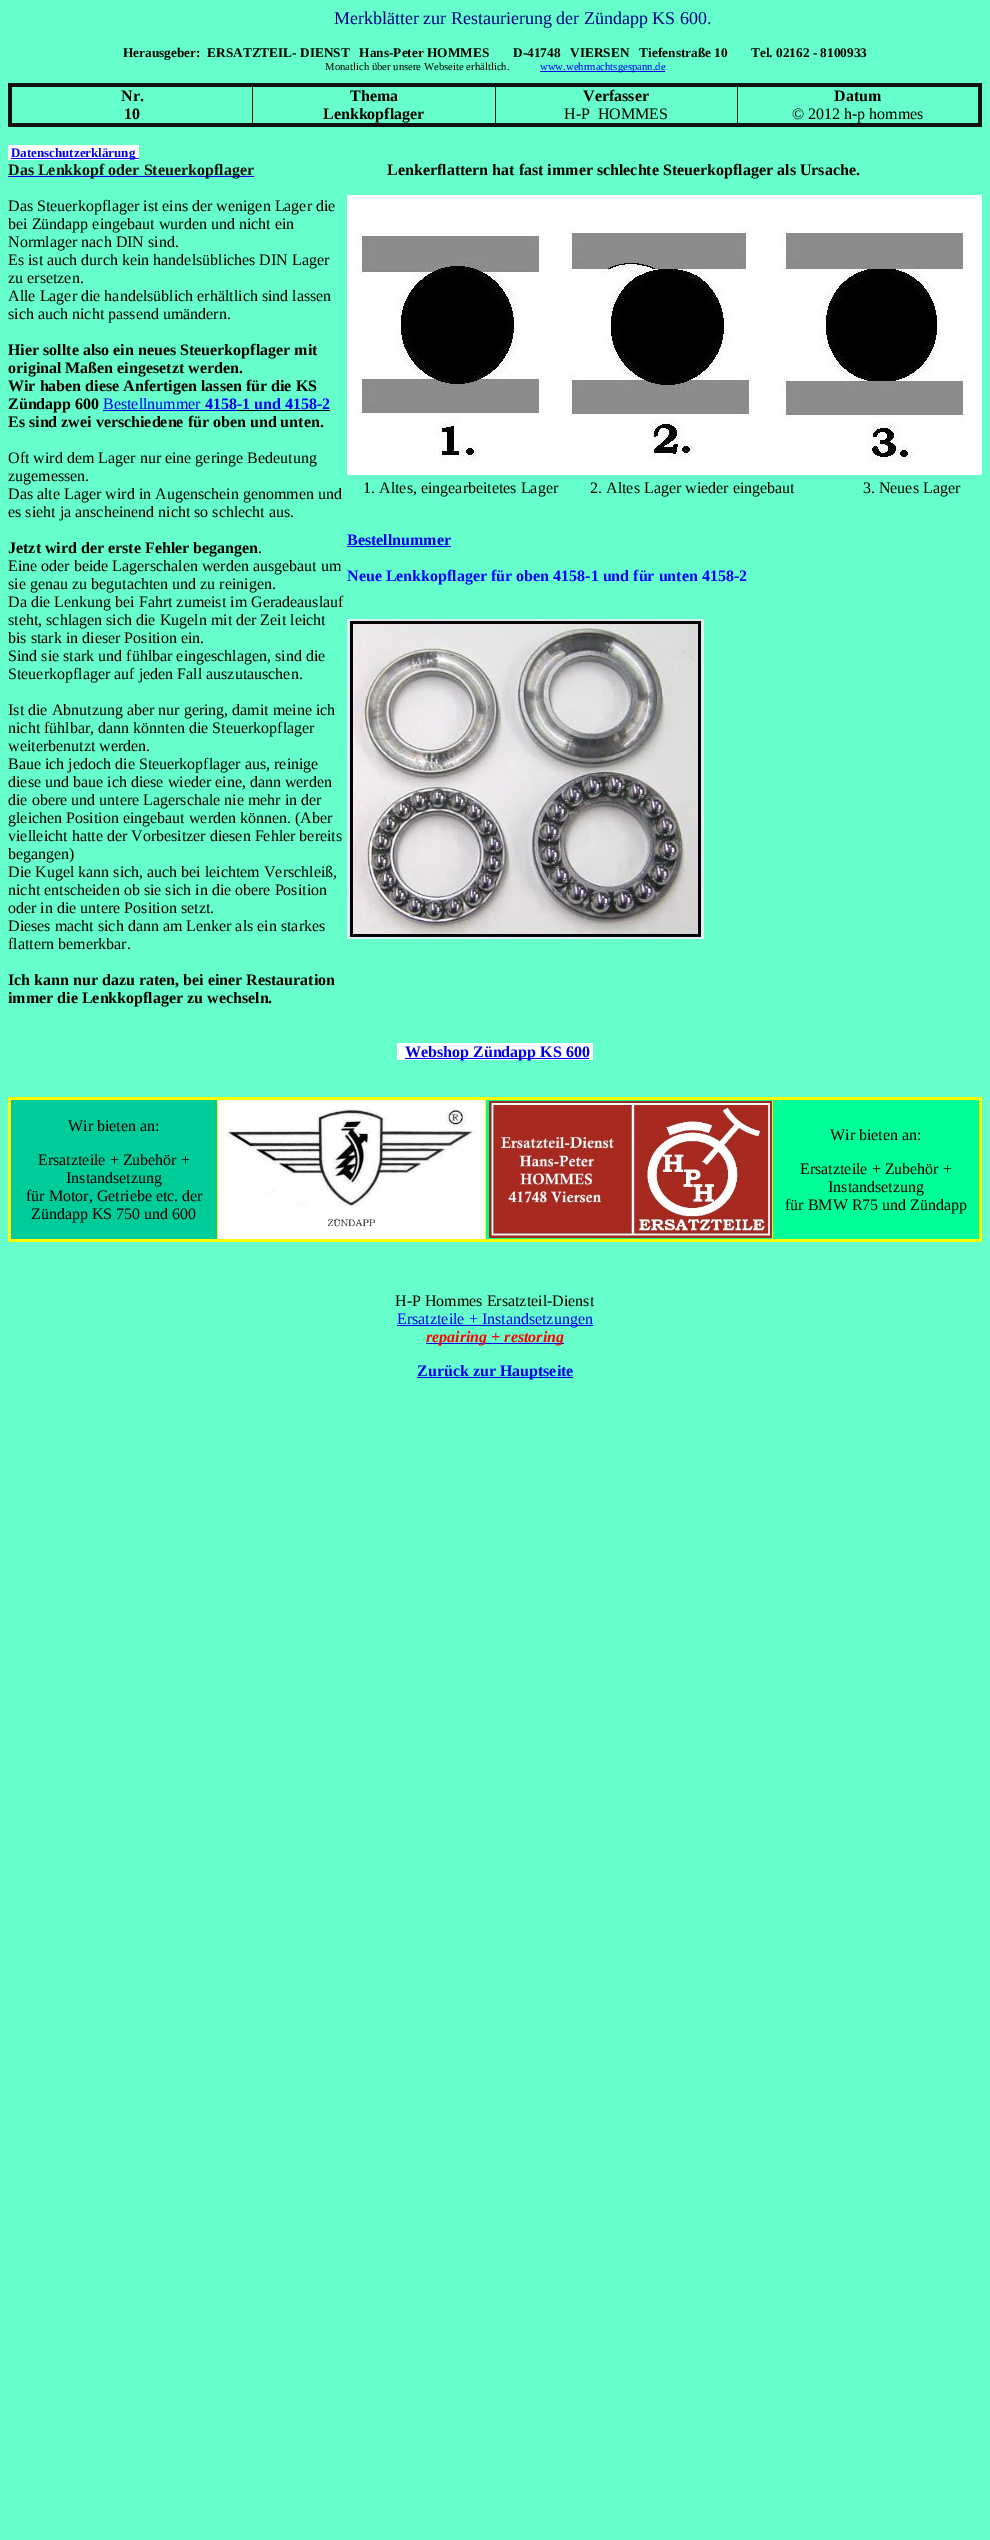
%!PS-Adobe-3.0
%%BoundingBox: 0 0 990 2540
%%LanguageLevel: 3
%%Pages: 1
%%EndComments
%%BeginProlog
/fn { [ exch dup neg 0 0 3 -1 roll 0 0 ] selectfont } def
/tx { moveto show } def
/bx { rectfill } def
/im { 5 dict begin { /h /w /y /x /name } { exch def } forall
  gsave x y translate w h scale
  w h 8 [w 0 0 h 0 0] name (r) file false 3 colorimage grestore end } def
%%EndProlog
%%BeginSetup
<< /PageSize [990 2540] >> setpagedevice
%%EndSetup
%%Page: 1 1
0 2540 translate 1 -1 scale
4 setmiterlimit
0.4 1 0.8 setrgbcolor
0 0 990 2540 bx
/LiberationSerif-Regular 18 fn
0 0 0.502 setrgbcolor
(Merkblätter zur Restaurierung der Zündapp KS 600.) 334 24 tx
/LiberationSerif-Bold 13.3 fn
0 setgray
(Herausgeber:  ERSATZTEIL- DIENST   Hans-Peter HOMMES) 123 57 tx
(D-41748   VIERSEN   Tiefenstraße 10) 513 57 tx
(Tel. 02162 - 8100933) 751 57 tx
/LiberationSerif-Regular 10.7 fn
(Monatlich über unsere Webseite erhältlich.) 325 70 tx
0 0 0.933 setrgbcolor
540 71 125 1 bx
(www.wehrmachtsgespann.de) 540 70 tx
0.067 setgray
252 85 1 41 bx
495 85 1 41 bx
737 85 1 41 bx
8 83 974 4 bx
978 83 4 44 bx
8 123 974 4 bx
8 83 4 44 bx
/LiberationSerif-Bold 16 fn
0 setgray
(Nr.) 121 101 tx
(10) 124 119 tx
(Thema) 350 101 tx
(Lenkkopflager) 323 119 tx
(Verfasser) 583 101 tx
/LiberationSerif-Regular 16 fn
(H-P  HOMMES) 564 119 tx
/LiberationSerif-Bold 16 fn
(Datum) 834 101 tx
/LiberationSerif-Regular 16 fn
(© 2012 h-p hommes) 792 119 tx
1 setgray
8 145 131 15 bx
0 0 0.933 setrgbcolor
11 158 124 1 bx
/LiberationSerif-Bold 13 fn
(Datenschutzerklärung) 11 157 tx
135 158 4 1 bx
8 176 246 1 bx
/LiberationSerif-Bold 16 fn
0.067 setgray
(Das Lenkkopf oder Steuerkopflager) 8 175 tx
/LiberationSerif-Regular 16 fn
0 setgray
(Das Steuerkopflager ist eins der wenigen Lager die) 8 211 tx
(bei Zündapp eingebaut wurden und nicht ein) 8 229 tx
(Normlager nach DIN sind.) 8 247 tx
(Es ist auch durch kein handelsübliches DIN Lager) 8 265 tx
(zu ersetzen.) 8 283 tx
(Alle Lager die handelsüblich erhältlich sind lassen) 8 301 tx
(sich auch nicht passend umändern.) 8 319 tx
/LiberationSerif-Bold 16 fn
(Hier sollte also ein neues Steuerkopflager mit) 8 355 tx
(original Maßen eingesetzt werden.) 8 373 tx
(Wir haben diese Anfertigen lassen für die KS) 8 391 tx
(Zündapp 600) 8 409 tx
/LiberationSerif-Regular 16 fn
0 0 0.933 setrgbcolor
(Bestellnummer) 103 409 tx
/LiberationSerif-Bold 16 fn
(4158) 205 409 tx
103 410 134 1 bx
0 setgray
237 410 93 1 bx
0 0 1 setrgbcolor
(-1 und 4158-2) 237 409 tx
0 setgray
(Es sind zwei verschiedene für oben und unten.) 8 427 tx
/LiberationSerif-Regular 16 fn
(Oft wird dem Lager nur eine geringe Bedeutung) 8 463 tx
(zugemessen.) 8 481 tx
(Das alte Lager wird in Augenschein genommen und) 8 499 tx
(es sieht ja anscheinend nicht so schlecht aus.) 8 517 tx
/LiberationSerif-Bold 16 fn
(Jetzt wird der erste Fehler begangen) 8 553 tx
/LiberationSerif-Regular 16 fn
(.) 258 553 tx
(Eine oder beide Lagerschalen werden ausgebaut um) 8 571 tx
(sie genau zu begutachten und zu reinigen.) 8 589 tx
(Da die Lenkung bei Fahrt zumeist im Geradeauslauf) 8 607 tx
(steht, schlagen sich die Kugeln mit der Zeit leicht) 8 625 tx
(bis stark in dieser Position ein.) 8 643 tx
(Sind sie stark und fühlbar eingeschlagen, sind die) 8 661 tx
(Steuerkopflager auf jeden Fall auszutauschen.) 8 679 tx
(Ist die Abnutzung aber nur gering, damit meine ich) 8 715 tx
(nicht fühlbar, dann könnten die Steuerkopflager) 8 733 tx
(weiterbenutzt werden.) 8 751 tx
(Baue ich jedoch die Steuerkopflager aus, reinige) 8 769 tx
(diese und baue ich diese wieder eine, dann werden) 8 787 tx
(die obere und untere Lagerschale nie mehr in der) 8 805 tx
(gleichen Position eingebaut werden können. \(Aber) 8 823 tx
(vielleicht hatte der Vorbesitzer diesen Fehler bereits) 8 841 tx
(begangen\)) 8 859 tx
(Die Kugel kann sich, auch bei leichtem Verschleiß,) 8 877 tx
(nicht entscheiden ob sie sich in die obere Position) 8 895 tx
(oder in die untere Position setzt.) 8 913 tx
(Dieses macht sich dann am Lenker als ein starkes) 8 931 tx
(flattern bemerkbar.) 8 949 tx
/LiberationSerif-Bold 16 fn
(Ich kann nur dazu raten, bei einer Restauration) 8 985 tx
(immer die Lenkkopflager zu wechseln.) 8 1003 tx
(Lenkerflattern hat fast immer schlechte Steuerkopflager als Ursache.) 387 175 tx
(image0.raw) 347 195 635 280 im
/LiberationSerif-Regular 16 fn
(1. Altes, eingearbeitetes Lager        2. Altes Lager wieder eingebaut                 3. Neues Lager) 363 493 tx
/LiberationSerif-Bold 16 fn
0 0 0.933 setrgbcolor
(Bestellnummer) 347 545 tx
347 546 104 1 bx
0 0 1 setrgbcolor
(Neue Lenkkopflager für oben 4158-1 und für unten 4158-2) 347 581 tx
(image1.raw) 347 619 357 320 im
1 setgray
397 1043 196 17 bx
0 0 0.933 setrgbcolor
405 1058 184 1 bx
(Webshop Zündapp KS 600) 405 1057 tx
1 1 0 setrgbcolor
217 1098 1 143 bx
485 1098 1 143 bx
772 1098 1 143 bx
8 1097 974 3 bx
979 1097 3 145 bx
8 1239 974 3 bx
8 1097 3 145 bx
0 0.8 0.6 setrgbcolor
11 1100 206 139 bx
/LiberationSerif-Regular 16 fn
0 setgray
(Wir bieten an:) 68 1131 tx
(Ersatzteile + Zubehör +) 38 1165 tx
(Instandsetzung) 66 1183 tx
(für Motor, Getriebe etc. der) 26 1201 tx
(Zündapp KS 750 und 600) 31 1219 tx
(image2.raw) 218 1100 267 139 im
0 1 0.6 setrgbcolor
486 1100 286 139 bx
(image3.raw) 489 1101 283 137 im
773 1100 206 139 bx
0 setgray
(Wir bieten an:) 830 1140 tx
(Ersatzteile + Zubehör +) 800 1174 tx
(Instandsetzung) 828 1192 tx
(für BMW R75 und Zündapp) 785 1210 tx
(H-P Hommes Ersatzteil-Dienst) 395 1306 tx
0 0 0.933 setrgbcolor
397 1325 196 1 bx
(Ersatzteile + Instandsetzungen) 397 1324 tx
426 1343 138 1 bx
/LiberationSerif-BoldItalic 16 fn
1 0 0 setrgbcolor
(repairing + restoring) 426 1342 tx
0 0 0.933 setrgbcolor
417 1377 156 1 bx
/LiberationSerif-Bold 16 fn
(Zurück zur Hauptseite) 417 1376 tx
showpage
%%EOF
